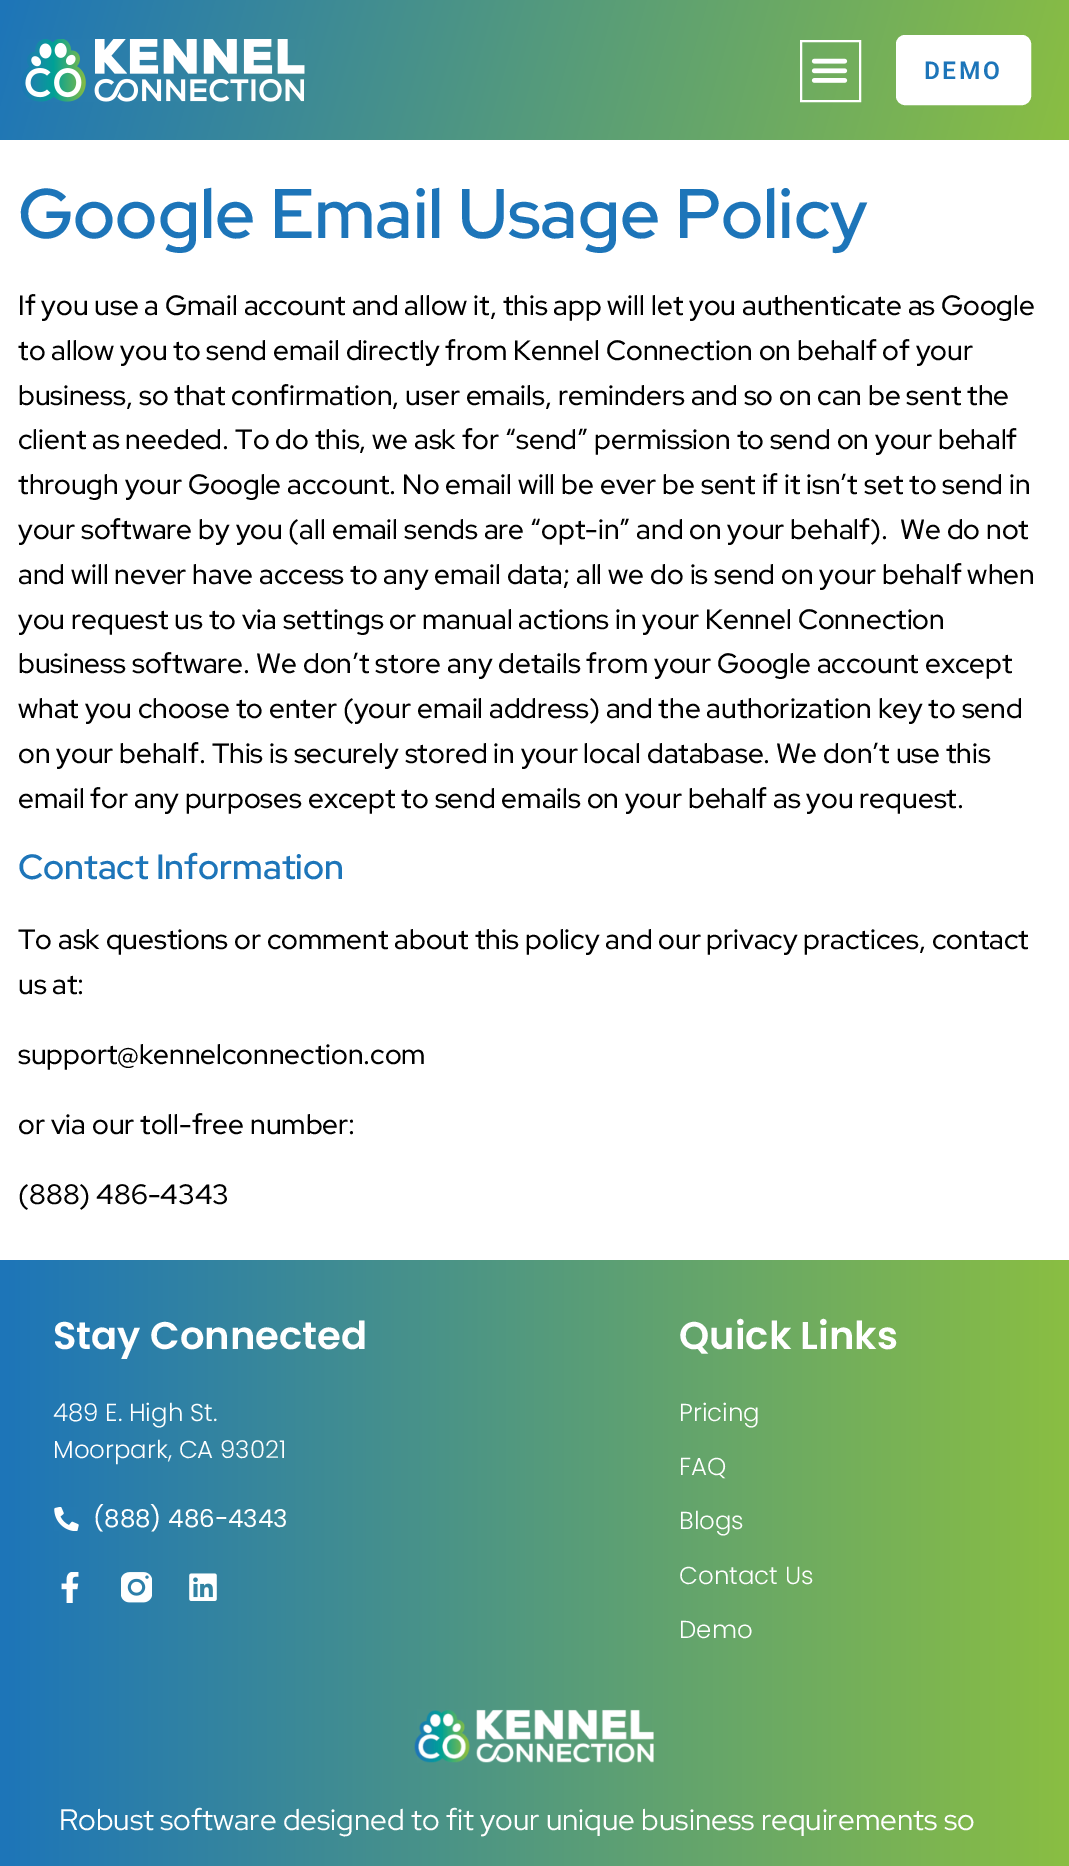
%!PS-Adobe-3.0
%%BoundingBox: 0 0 1069 1866
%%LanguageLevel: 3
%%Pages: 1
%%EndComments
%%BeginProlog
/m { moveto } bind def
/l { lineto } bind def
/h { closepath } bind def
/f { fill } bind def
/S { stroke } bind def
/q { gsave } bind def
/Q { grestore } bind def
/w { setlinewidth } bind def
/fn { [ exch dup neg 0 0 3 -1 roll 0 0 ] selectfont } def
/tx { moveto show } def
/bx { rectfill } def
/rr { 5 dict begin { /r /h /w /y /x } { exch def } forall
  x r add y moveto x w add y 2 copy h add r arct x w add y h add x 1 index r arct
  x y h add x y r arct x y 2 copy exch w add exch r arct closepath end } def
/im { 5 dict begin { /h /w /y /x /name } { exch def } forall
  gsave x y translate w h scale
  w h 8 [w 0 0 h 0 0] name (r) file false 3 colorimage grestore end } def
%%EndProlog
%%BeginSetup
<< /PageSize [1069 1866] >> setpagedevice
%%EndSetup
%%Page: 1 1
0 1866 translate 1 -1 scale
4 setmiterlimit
1 setgray
0 0 1069 1866 bx
q 0 0 m 1069 0 l 1069 140 l 0 140 l h clip newpath
<< /ShadingType 2 /ColorSpace /DeviceRGB /Coords [22 -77 1047 217] /Extend [true true] /Function << /FunctionType 2 /Domain [0 1] /C0 [0.114 0.459 0.725] /C1 [0.541 0.745 0.259] /N 1 >> >> shfill Q
(image0.raw) 21 39 284 63 im
2 w
801 41 59 60 rectstroke
(image1.raw) 811 58 37 25 im
897 36 133 68 8 rr q f Q
S
/Roboto-SemiBold 24.5 fn
0.114 0.459 0.725 setrgbcolor
924 79 m 2.5 0 (DEMO) ashow
/RedHatDisplay-SemiBold 70 fn
(Google Email Usage Policy) 18 238 tx
/RedHatDisplay-Medium 28 fn
0 setgray
(If you use a Gmail account and allow it, this app will let you authenticate as Google) 18 315 tx
(to allow you to send email directly from Kennel Connection on behalf of your) 18 360 tx
(business, so that confirmation, user emails, reminders and so on can be sent the) 18 405 tx
(client as needed. To do this, we ask for “send” permission to send on your behalf) 18 449 tx
(through your Google account. No email will be ever be sent if it isn’t set to send in) 18 494 tx
(your software by you \(all email sends are “opt-in” and on your behalf\).  We do not) 18 539 tx
(and will never have access to any email data; all we do is send on your behalf when) 18 584 tx
(you request us to via settings or manual actions in your Kennel Connection) 18 629 tx
(business software. We don’t store any details from your Google account except) 18 673 tx
(what you choose to enter \(your email address\) and the authorization key to send) 18 718 tx
(on your behalf. This is securely stored in your local database. We don’t use this) 18 763 tx
(email for any purposes except to send emails on your behalf as you request.) 18 808 tx
/RedHatDisplay-SemiBold 35 fn
0.114 0.459 0.725 setrgbcolor
(Contact Information) 18 879 tx
/RedHatDisplay-Medium 28 fn
0 setgray
(To ask questions or comment about this policy and our privacy practices, contact) 18 949 tx
(us at:) 18 994 tx
(support@kennelconnection.com) 18 1064 tx
(or via our toll-free number:) 18 1134 tx
(\(888\) 486-4343) 18 1204 tx
q 0 1260 m 1069 1260 l 1069 1866 l 0 1866 l h clip newpath
<< /ShadingType 2 /ColorSpace /DeviceRGB /Coords [0 1619 1069 1619] /Extend [true true] /Function << /FunctionType 2 /Domain [0 1] /C0 [0.114 0.459 0.725] /C1 [0.541 0.745 0.259] /N 1 >> >> shfill Q
/Poppins-SemiBold 38.5 fn
1 setgray
(Stay Connected) 53 1349 tx
/Poppins-Light 24.5 fn
(489 E. High St.) 53 1421 tx
(Moorpark, CA 93021) 53 1458 tx
(image2.raw) 54 1507 25 24 im
/Poppins-Regular 24.5 fn
(\(888\) 486-4343) 93 1527 tx
(image3.raw) 61 1572 18 31 im
(image4.raw) 121 1572 31 31 im
(image5.raw) 189 1573 28 28 im
/Poppins-SemiBold 38.5 fn
(Quick Links) 679 1349 tx
/Poppins-Light 24.5 fn
(Pricing) 679 1421 tx
(FAQ) 679 1475 tx
(Blogs) 679 1529 tx
(Contact Us) 679 1584 tx
(Demo) 679 1638 tx
(image6.raw) 414 1709 240 54 im
/RedHatDisplay-Regular 29.75 fn
(Robust software designed to fit your unique business requirements so) 59 1830 tx
showpage
%%EOF
